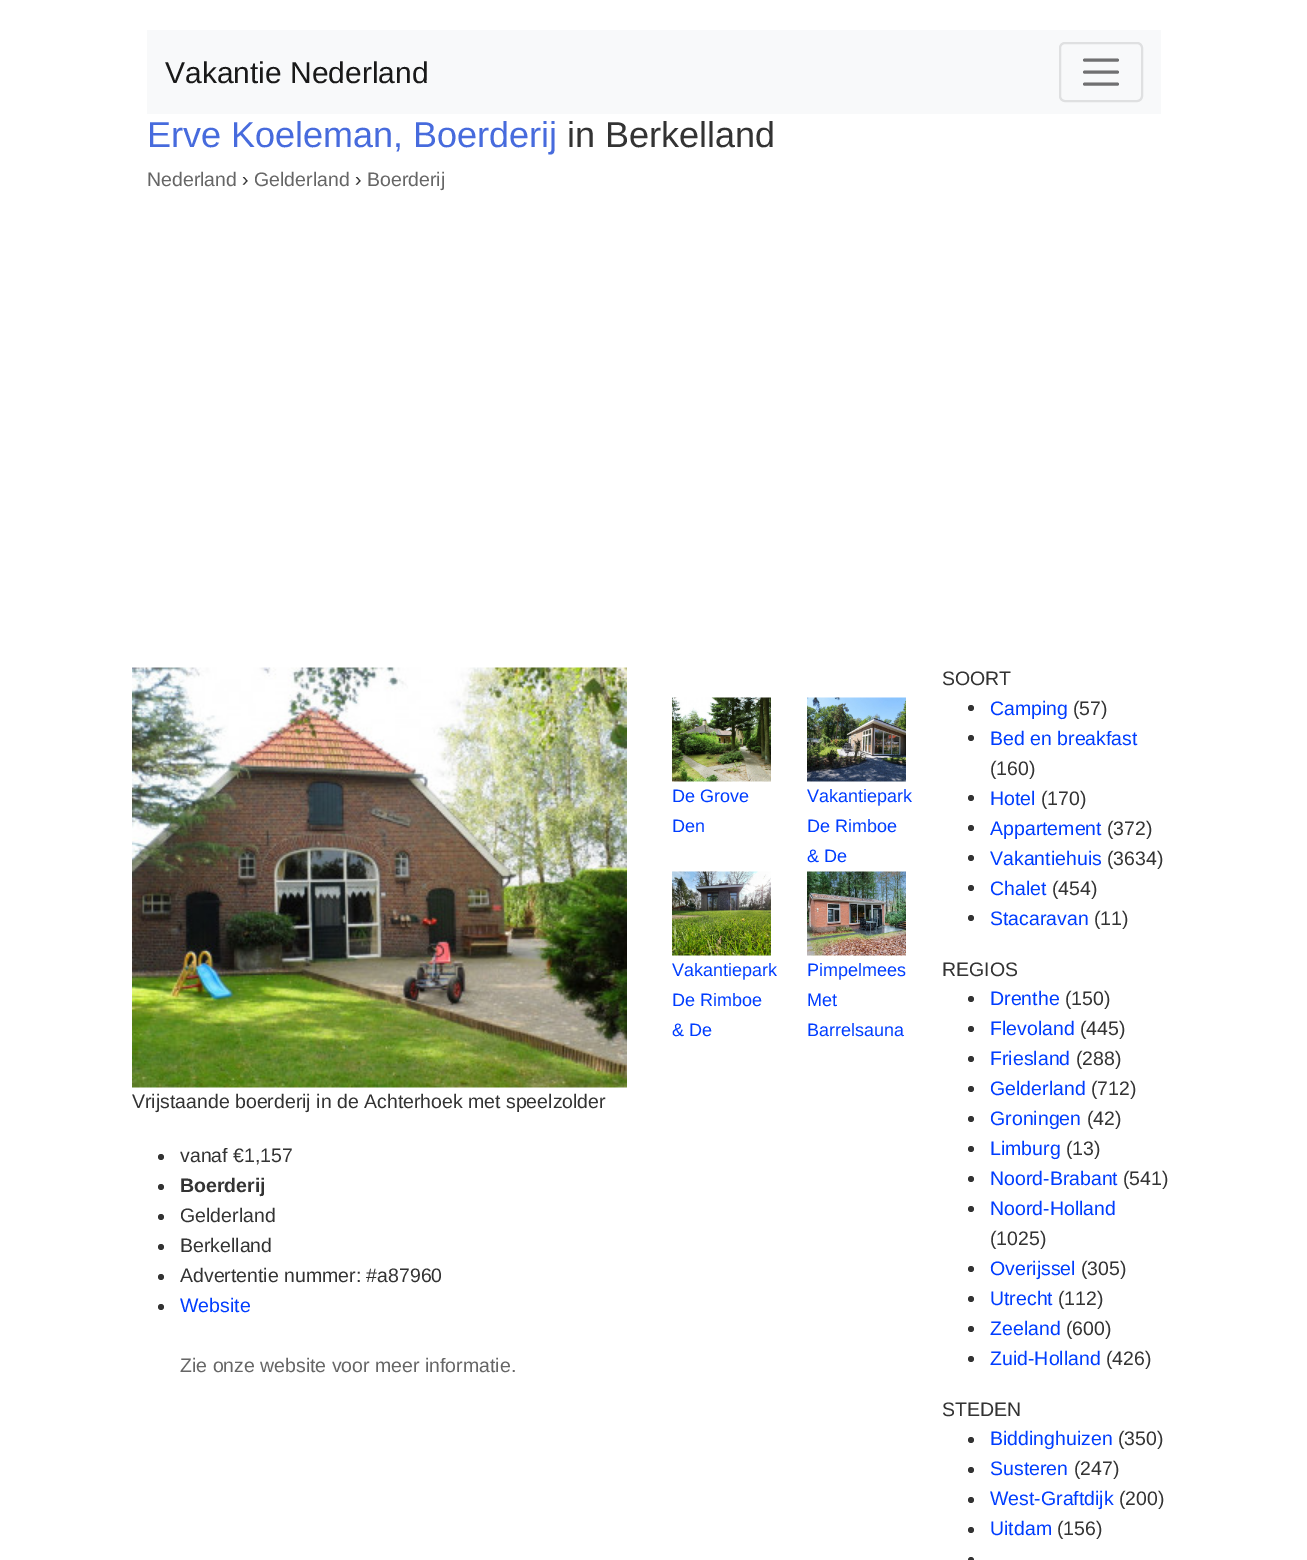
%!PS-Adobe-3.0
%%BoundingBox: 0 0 1307 1560
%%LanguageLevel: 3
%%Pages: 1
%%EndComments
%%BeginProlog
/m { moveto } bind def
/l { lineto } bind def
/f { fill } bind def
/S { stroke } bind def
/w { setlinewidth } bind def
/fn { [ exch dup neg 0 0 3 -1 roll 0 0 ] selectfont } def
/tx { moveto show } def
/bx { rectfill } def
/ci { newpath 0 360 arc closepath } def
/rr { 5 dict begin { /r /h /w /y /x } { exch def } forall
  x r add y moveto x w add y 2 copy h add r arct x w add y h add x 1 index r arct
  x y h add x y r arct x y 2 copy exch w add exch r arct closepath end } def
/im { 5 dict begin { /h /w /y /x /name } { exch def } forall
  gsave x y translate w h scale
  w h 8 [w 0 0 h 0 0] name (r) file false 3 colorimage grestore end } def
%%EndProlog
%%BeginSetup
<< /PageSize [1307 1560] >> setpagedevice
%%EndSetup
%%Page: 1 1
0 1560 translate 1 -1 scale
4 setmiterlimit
1 setgray
0 0 1307 1560 bx
0.973 0.976 0.98 setrgbcolor
147 30 1014 84 bx
/LiberationSans-Regular 30 fn
0.098 setgray
(Vakantie Nederland) 165 83 tx
0.875 0.878 0.882 setrgbcolor
2 w
1060 43 82 58 5 rr S
0.439 0.439 0.443 setrgbcolor
3 w
1 setlinecap
1084.5 60 m 1117.5 60 l 1084.5 72 m 1117.5 72 l 1084.5 84 m 1117.5 84 l S
/LiberationSans-Regular 36 fn
0.278 0.42 0.867 setrgbcolor
(Erve Koeleman, Boerderij) 147 147 tx
0.2 setgray
(in Berkelland) 567 147 tx
/LiberationSans-Regular 19.5 fn
0.4 setgray
(Nederland) 147 186 tx
0.2 setgray
(›) 242 186 tx
0.4 setgray
(Gelderland) 254 186 tx
0.2 setgray
(›) 355 186 tx
0.4 setgray
(Boerderij) 367 186 tx
(image0.raw) 672 697 99 85 im
/LiberationSans-Regular 18 fn
0 0.239 1 setrgbcolor
(De Grove) 672 802 tx
(Den) 672 832 tx
(image1.raw) 807 697 99 85 im
(Vakantiepark) 807 802 tx
(De Rimboe) 807 832 tx
(& De) 807 862 tx
(image2.raw) 672 871 99 85 im
(Vakantiepark) 672 976 tx
(De Rimboe) 672 1006 tx
(& De) 672 1036 tx
(image3.raw) 807 871 99 85 im
(Pimpelmees) 807 976 tx
(Met) 807 1006 tx
(Barrelsauna) 807 1036 tx
(image4.raw) 132 667 495 421 im
/LiberationSans-Regular 19.5 fn
0.2 setgray
(Vrijstaande boerderij in de Achterhoek met speelzolder) 132 1108 tx
161 1157 3 ci f
(vanaf €1,157) 180 1162 tx
161 1187 3 ci f
/LiberationSans-Bold 19.5 fn
(Boerderij) 180 1192 tx
161 1217 3 ci f
/LiberationSans-Regular 19.5 fn
(Gelderland) 180 1222 tx
161 1247 3 ci f
(Berkelland) 180 1252 tx
161 1277 3 ci f
(Advertentie nummer: #a87960) 180 1282 tx
161 1307 3 ci f
0 0.239 1 setrgbcolor
(Website) 180 1312 tx
0.4 setgray
(Zie onze website voor meer informatie.) 180 1372 tx
0.2 setgray
(SOORT) 942 685 tx
971 708 3 ci f
0 0.239 1 setrgbcolor
(Camping) 990 715 tx
0.2 setgray
(\(57\)) 1073 715 tx
971 738 3 ci f
0 0.239 1 setrgbcolor
(Bed en breakfast) 990 745 tx
0.2 setgray
(\(160\)) 990 775 tx
971 798 3 ci f
0 0.239 1 setrgbcolor
(Hotel) 990 805 tx
0.2 setgray
(\(170\)) 1041 805 tx
971 828 3 ci f
0 0.239 1 setrgbcolor
(Appartement) 990 835 tx
0.2 setgray
(\(372\)) 1107 835 tx
971 858 3 ci f
0 0.239 1 setrgbcolor
(Vakantiehuis) 990 865 tx
0.2 setgray
(\(3634\)) 1107 865 tx
971 888 3 ci f
0 0.239 1 setrgbcolor
(Chalet) 990 895 tx
0.2 setgray
(\(454\)) 1052 895 tx
971 918 3 ci f
0 0.239 1 setrgbcolor
(Stacaravan) 990 925 tx
0.2 setgray
(\(11\)) 1094 925 tx
(REGIOS) 942 976 tx
971 999 3 ci f
0 0.239 1 setrgbcolor
(Drenthe) 990 1005 tx
0.2 setgray
(\(150\)) 1065 1005 tx
971 1029 3 ci f
0 0.239 1 setrgbcolor
(Flevoland) 990 1035 tx
0.2 setgray
(\(445\)) 1080 1035 tx
971 1059 3 ci f
0 0.239 1 setrgbcolor
(Friesland) 990 1065 tx
0.2 setgray
(\(288\)) 1076 1065 tx
971 1089 3 ci f
0 0.239 1 setrgbcolor
(Gelderland) 990 1095 tx
0.2 setgray
(\(712\)) 1091 1095 tx
971 1119 3 ci f
0 0.239 1 setrgbcolor
(Groningen) 990 1125 tx
0.2 setgray
(\(42\)) 1087 1125 tx
971 1149 3 ci f
0 0.239 1 setrgbcolor
(Limburg) 990 1155 tx
0.2 setgray
(\(13\)) 1066 1155 tx
971 1179 3 ci f
0 0.239 1 setrgbcolor
(Noord-Brabant) 990 1185 tx
0.2 setgray
(\(541\)) 1123 1185 tx
971 1209 3 ci f
0 0.239 1 setrgbcolor
(Noord-Holland) 990 1215 tx
0.2 setgray
(\(1025\)) 990 1245 tx
971 1269 3 ci f
0 0.239 1 setrgbcolor
(Overijssel) 990 1275 tx
0.2 setgray
(\(305\)) 1081 1275 tx
971 1299 3 ci f
0 0.239 1 setrgbcolor
(Utrecht) 990 1305 tx
0.2 setgray
(\(112\)) 1058 1305 tx
971 1329 3 ci f
0 0.239 1 setrgbcolor
(Zeeland) 990 1335 tx
0.2 setgray
(\(600\)) 1066 1335 tx
971 1359 3 ci f
0 0.239 1 setrgbcolor
(Zuid-Holland) 990 1365 tx
0.2 setgray
(\(426\)) 1106 1365 tx
(STEDEN) 942 1416 tx
971 1440 3 ci f
0 0.239 1 setrgbcolor
(Biddinghuizen) 990 1445 tx
0.2 setgray
(\(350\)) 1118 1445 tx
971 1470 3 ci f
0 0.239 1 setrgbcolor
(Susteren) 990 1475 tx
0.2 setgray
(\(247\)) 1074 1475 tx
971 1500 3 ci f
0 0.239 1 setrgbcolor
(West-Graftdijk) 990 1505 tx
0.2 setgray
(\(200\)) 1119 1505 tx
971 1530 3 ci f
0 0.239 1 setrgbcolor
(Uitdam) 990 1535 tx
0.2 setgray
(\(156\)) 1057 1535 tx
971 1560 3 ci f
showpage
%%EOF
